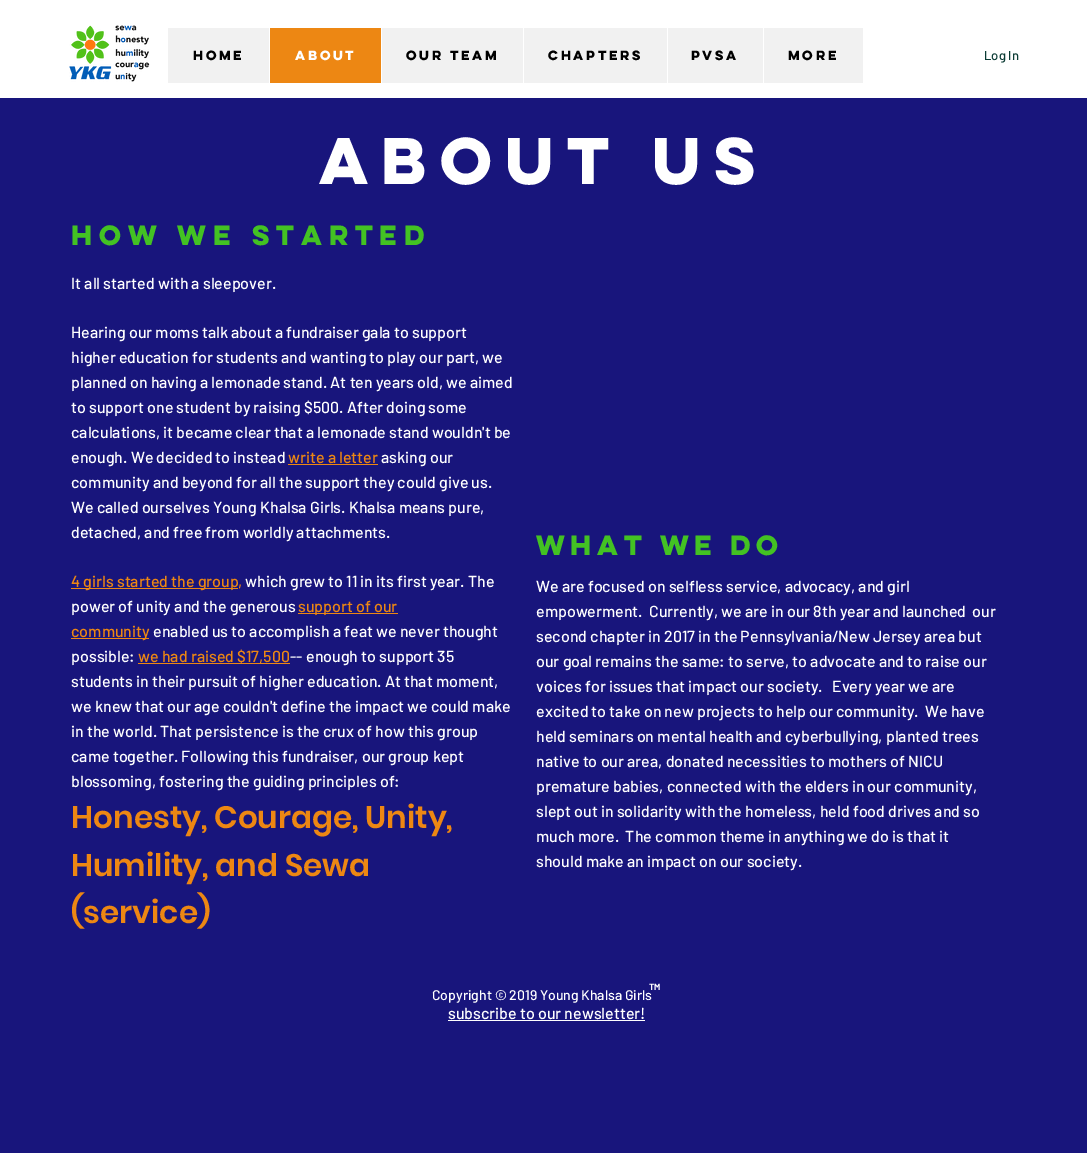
%!PS-Adobe-3.0
%%BoundingBox: 0 0 1087 1153
%%LanguageLevel: 3
%%Pages: 1
%%EndComments
%%BeginProlog
/m { moveto } bind def
/fn { [ exch dup neg 0 0 3 -1 roll 0 0 ] selectfont } def
/tx { moveto show } def
/bx { rectfill } def
/im { 5 dict begin { /h /w /y /x /name } { exch def } forall
  gsave x y translate w h scale
  w h 8 [w 0 0 h 0 0] name (r) file false 3 colorimage grestore end } def
%%EndProlog
%%BeginSetup
<< /PageSize [1087 1153] >> setpagedevice
%%EndSetup
%%Page: 1 1
0 1153 translate 1 -1 scale
4 setmiterlimit
0.094 0.082 0.486 setrgbcolor
0 0 1087 1153 bx
1 setgray
0 0 1087 98 bx
0.945 setgray
168 28 695 55 bx
/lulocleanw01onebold-Bold 12 fn
0 setgray
(Home) 193 60 tx
0.929 0.529 0.075 setrgbcolor
270 28 111 55 bx
1 setgray
269 28 1 55 bx
(About) 295 60 tx
381 28 1 55 bx
0 setgray
(Our Team) 406 60 tx
1 setgray
523 28 1 55 bx
0 setgray
(Chapters) 548 60 tx
1 setgray
667 28 1 55 bx
0 setgray
(PVSA) 691 60 tx
1 setgray
763 28 1 55 bx
0 setgray
(More) 788 60 tx
(image0.raw) 69 25 81 57 im
/Barlow-Medium 13 fn
0.047 0.235 0.208 setrgbcolor
(Log In) 984 60 tx
/lulocleanw01onebold-Bold 59 fn
1 setgray
(ABOUT US) 319 184 tx
/lulocleanw01onebold-Bold 25 fn
0.263 0.761 0.137 setrgbcolor
71 245 m 1.25 0 (HOW WE STARTED) ashow
/Barlow-Medium 16 fn
1 setgray
(It all started with a sleepover.) 71 289 tx
(Hearing our moms talk about a fundraiser gala to support) 71 338 tx
(higher education for students and wanting to play our part, we) 71 363 tx
(planned on having a lemonade stand. At ten years old, we aimed) 71 388 tx
(to support one student by raising $500. After doing some) 71 413 tx
(calculations, it became clear that a lemonade stand wouldn't be) 71 438 tx
(enough. We decided to instead) 71 463 tx
0.929 0.529 0.075 setrgbcolor
(write a letter) 288 463 tx
288 464 90 1 bx
1 setgray
(asking our) 381 463 tx
(community and beyond for all the support they could give us.) 71 488 tx
(We called ourselves Young Khalsa Girls. Khalsa means pure,) 71 513 tx
(detached, and free from worldly attachments.) 71 538 tx
0.929 0.529 0.075 setrgbcolor
71 588 167 1 bx
(4 girls started the group,) 71 587 tx
1 setgray
(which grew to 11 in its first year. The) 245 587 tx
(power of unity and the generous) 71 612 tx
0.929 0.529 0.075 setrgbcolor
298 613 100 1 bx
(support of our) 298 612 tx
71 638 78 1 bx
(community) 71 637 tx
1 setgray
(enabled us to accomplish a feat we never thought) 153 637 tx
(possible:) 71 662 tx
0.929 0.529 0.075 setrgbcolor
138 663 152 1 bx
(we had raised $17,500) 138 662 tx
1 setgray
(-- enough to support 35) 290 662 tx
(students in their pursuit of higher education. At that moment,) 71 687 tx
(we knew that our age couldn't define the impact we could make) 71 712 tx
(in the world. That persistence is the crux of how this group) 71 737 tx
(came together. Following this fundraiser, our group kept) 71 762 tx
(blossoming, fostering the guiding principles of:) 71 787 tx
/Poppins-SemiBold 31 fn
0.929 0.529 0.075 setrgbcolor
(Honesty, Courage, Unity,) 71 828 tx
(Humility, and Sewa) 71 876 tx
(\(service\)) 71 923 tx
/lulocleanw01onebold-Bold 25 fn
0.263 0.761 0.137 setrgbcolor
(WHAT WE DO) 536 555 tx
/Barlow-Medium 16 fn
1 setgray
(We are focused on selfless service, advocacy, and girl) 536 592 tx
(empowerment.  Currently, we are in our 8th year and launched  our) 536 617 tx
(second chapter in 2017 in the Pennsylvania/New Jersey area but) 536 642 tx
(our goal remains the same: to serve, to advocate and to raise our) 536 667 tx
(voices for issues that impact our society.   Every year we are) 536 692 tx
(excited to take on new projects to help our community.  We have) 536 717 tx
(held seminars on mental health and cyberbullying, planted trees) 536 742 tx
(native to our area, donated necessities to mothers of NICU) 536 767 tx
(premature babies, connected with the elders in our community,) 536 792 tx
(slept out in solidarity with the homeless, held food drives and so) 536 817 tx
(much more.  The common theme in anything we do is that it) 536 842 tx
(should make an impact on our society.) 536 867 tx
/Barlow-Bold 9 fn
(TM) 649 990 tx
/Barlow-Medium 14 fn
(Copyright © 2019 Young Khalsa Girls) 432 1000 tx
/Barlow-Medium 16 fn
(subscribe to our newsletter!) 448 1019 tx
448 1020 197 1 bx
showpage
%%EOF
